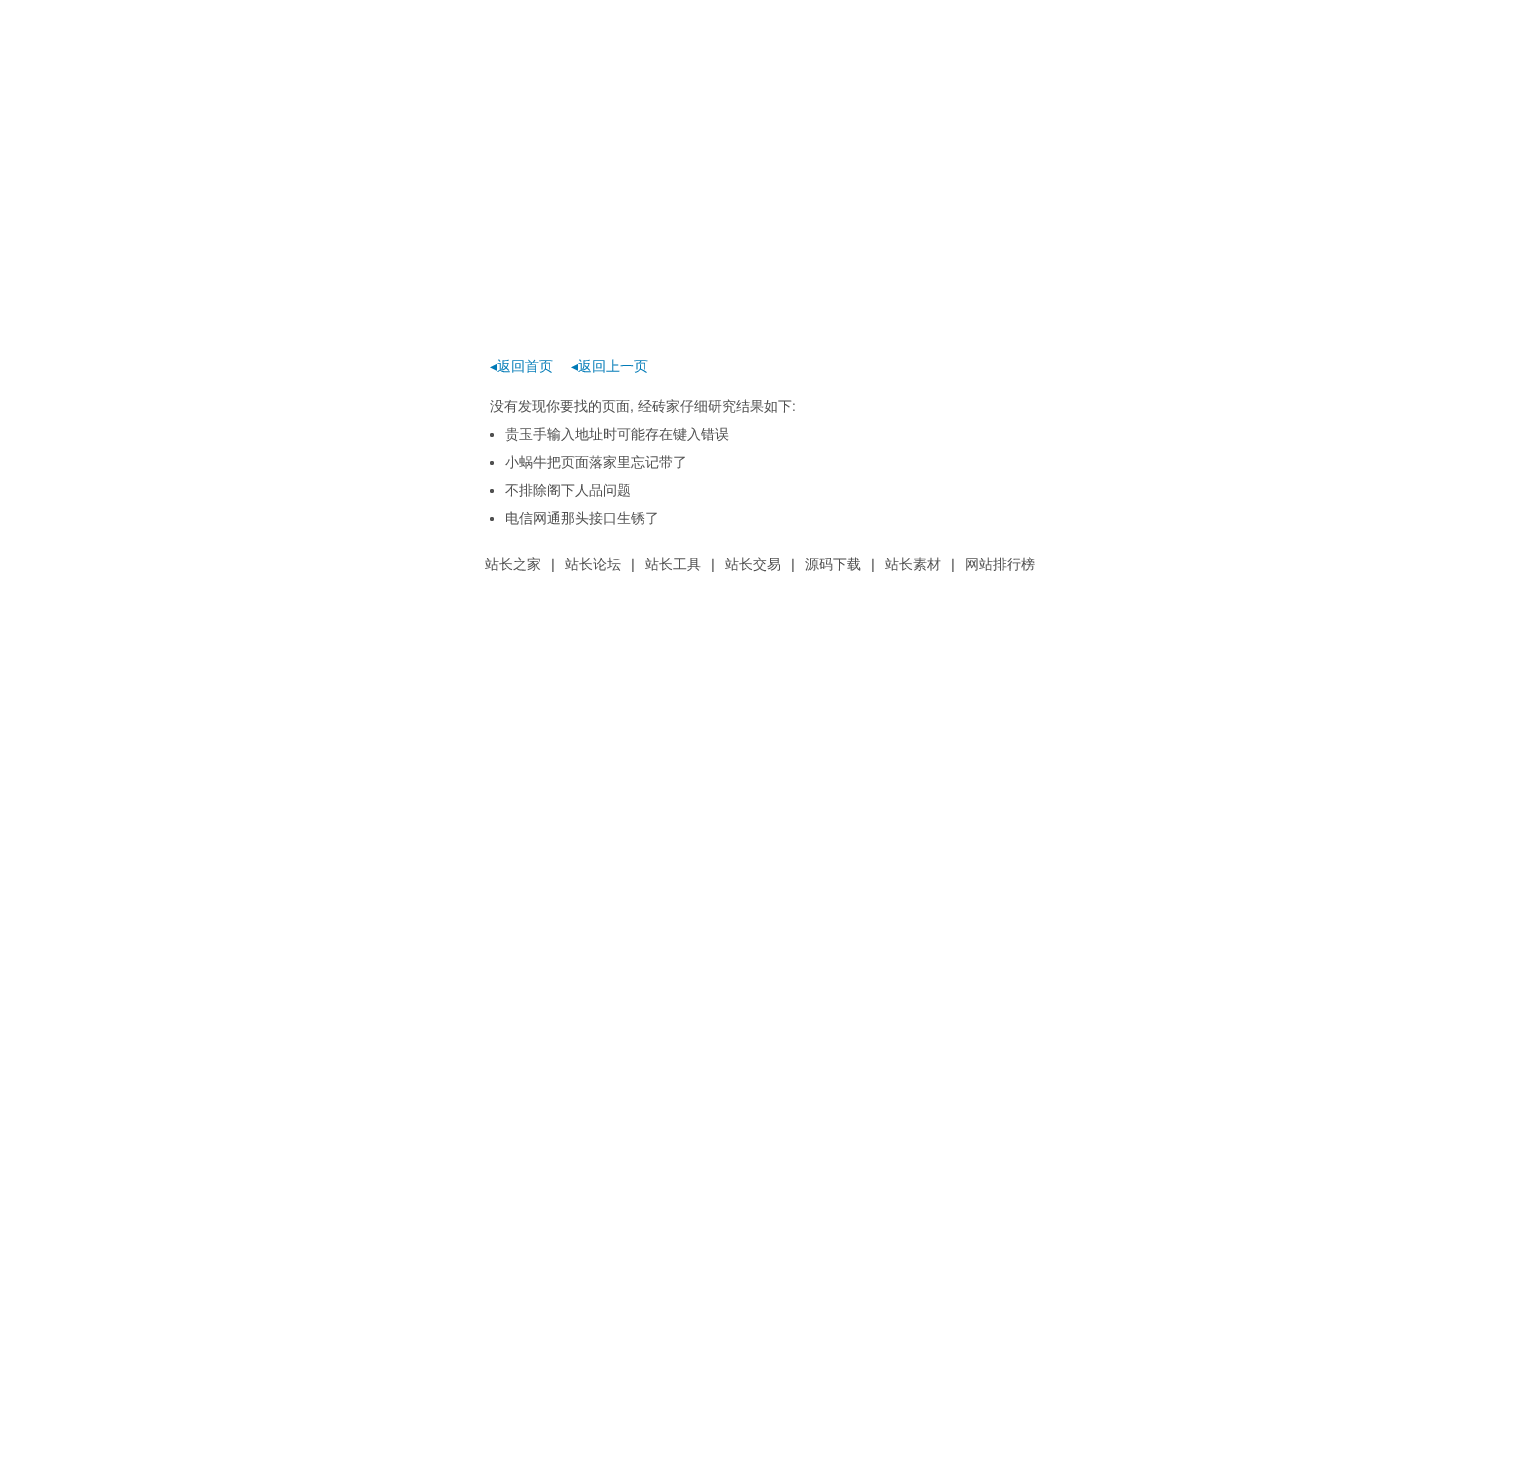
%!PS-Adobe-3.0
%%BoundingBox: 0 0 1520 1475
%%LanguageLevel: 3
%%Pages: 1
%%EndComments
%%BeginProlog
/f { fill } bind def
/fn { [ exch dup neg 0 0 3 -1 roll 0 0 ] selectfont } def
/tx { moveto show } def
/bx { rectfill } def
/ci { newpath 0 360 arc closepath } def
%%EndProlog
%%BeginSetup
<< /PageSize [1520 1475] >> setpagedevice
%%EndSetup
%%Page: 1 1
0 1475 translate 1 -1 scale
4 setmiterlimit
1 setgray
0 0 1520 1475 bx
/DejaVuSans-Regular 14 fn
0 0.478 0.718 setrgbcolor
(◂) 490 371 tx
/WenQuanYiZenHei-Medium 14 fn
(返回首页) 497 371 tx
/DejaVuSans-Regular 14 fn
(◂) 571 371 tx
/WenQuanYiZenHei-Medium 14 fn
(返回上一页) 578 371 tx
0.314 setgray
(没有发现你要找的页面) 490 411 tx
/LiberationSans-Regular 14 fn
(,) 630 411 tx
/WenQuanYiZenHei-Medium 14 fn
(经砖家仔细研究结果如下) 638 411 tx
/LiberationSans-Regular 14 fn
(:) 792 411 tx
492 435 2 ci f
/WenQuanYiZenHei-Medium 14 fn
(贵玉手输入地址时可能存在键入错误) 505 439 tx
492 463 2 ci f
(小蜗牛把页面落家里忘记带了) 505 467 tx
492 491 2 ci f
(不排除阁下人品问题) 505 495 tx
492 519 2 ci f
(电信网通那头接口生锈了) 505 523 tx
(站长之家) 485 569 tx
/LiberationSans-Regular 14 fn
(|) 551 569 tx
/WenQuanYiZenHei-Medium 14 fn
(站长论坛) 565 569 tx
/LiberationSans-Regular 14 fn
(|) 631 569 tx
/WenQuanYiZenHei-Medium 14 fn
(站长工具) 645 569 tx
/LiberationSans-Regular 14 fn
(|) 711 569 tx
/WenQuanYiZenHei-Medium 14 fn
(站长交易) 725 569 tx
/LiberationSans-Regular 14 fn
(|) 791 569 tx
/WenQuanYiZenHei-Medium 14 fn
(源码下载) 805 569 tx
/LiberationSans-Regular 14 fn
(|) 871 569 tx
/WenQuanYiZenHei-Medium 14 fn
(站长素材) 885 569 tx
/LiberationSans-Regular 14 fn
(|) 951 569 tx
/WenQuanYiZenHei-Medium 14 fn
(网站排行榜) 965 569 tx
showpage
%%EOF
